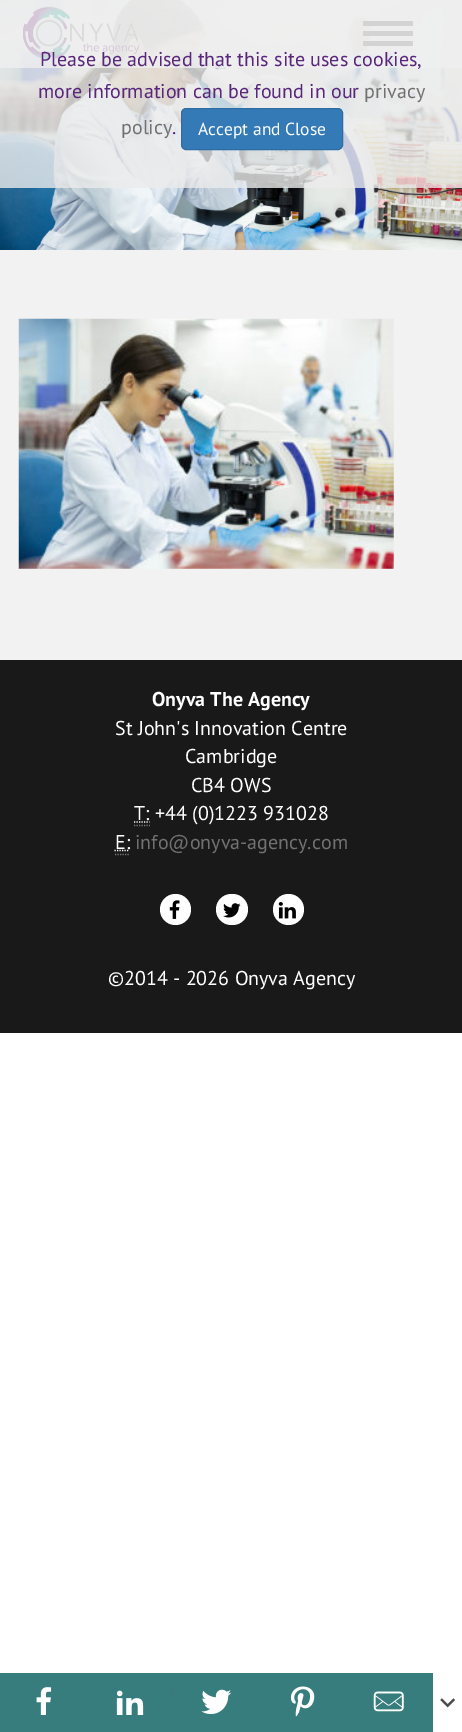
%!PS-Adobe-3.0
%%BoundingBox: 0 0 462 1732
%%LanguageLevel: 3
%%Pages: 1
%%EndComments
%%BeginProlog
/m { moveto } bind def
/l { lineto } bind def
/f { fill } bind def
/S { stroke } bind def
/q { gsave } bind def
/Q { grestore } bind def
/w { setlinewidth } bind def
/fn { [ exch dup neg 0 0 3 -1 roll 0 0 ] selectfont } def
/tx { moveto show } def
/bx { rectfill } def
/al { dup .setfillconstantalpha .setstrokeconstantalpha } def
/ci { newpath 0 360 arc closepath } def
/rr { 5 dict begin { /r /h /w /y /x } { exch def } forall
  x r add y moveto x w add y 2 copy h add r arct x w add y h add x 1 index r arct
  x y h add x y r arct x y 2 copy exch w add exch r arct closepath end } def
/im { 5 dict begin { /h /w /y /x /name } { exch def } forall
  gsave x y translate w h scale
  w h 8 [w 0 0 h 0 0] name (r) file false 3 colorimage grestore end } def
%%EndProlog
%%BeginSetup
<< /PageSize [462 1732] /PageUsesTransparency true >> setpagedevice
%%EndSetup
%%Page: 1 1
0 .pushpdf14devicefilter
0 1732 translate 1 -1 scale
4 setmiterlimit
1 setgray
0 0 462 1732 bx
0.953 0.949 0.949 setrgbcolor
0 250 462 410 bx
(image0.raw) 0 0 462 250 im
(image1.raw) 18 318 376 251 im
0.216 0.49 0.49 setrgbcolor
0 1673 433 59 bx
(image2.raw) 36 1687 16 28 im
(image3.raw) 116 1690 28 25 im
(image4.raw) 172 1687 1 8 im
(image5.raw) 201 1689 31 26 im
(image6.raw) 290 1686 25 31 im
(image7.raw) 373 1691 31 21 im
(image8.raw) 440 1698 15 10 im
0.8 al
1 setgray
0 0 462 68 bx
1 al
(image9.raw) 23 6 116 54 im
0.443 0.443 0.447 setrgbcolor
363 21 50 5 1 rr f
363 31 50 5 1 rr f
363 41 50 5 1 rr f
0.8 al
0.922 setgray
0 0 462 188 bx
/PTSans-Regular 20 fn
1 al
0.345 0.149 0.478 setrgbcolor
(Please be advised that this site uses cookies,) 40 66 tx
(more information can be found in our) 38 98 tx
0.443 0.443 0.447 setrgbcolor
(privacy) 364 98 tx
(policy) 121 134 tx
0.345 0.149 0.478 setrgbcolor
(.) 172 134 tx
0.2 0.478 0.718 setrgbcolor
181.5 108.5 161 41 4.5 rr q f Q
0.18 0.427 0.643 setrgbcolor
S
/PTSans-Regular 17.5 fn
1 setgray
(Accept and Close) 198 135 tx
0.098 setgray
0 660 462 373 bx
/PTSans-Bold 20 fn
1 setgray
(Onyva The Agency) 152 706 tx
/PTSans-Regular 20 fn
(St John's Innovation Centre) 115 735 tx
(Cambridge) 185 763 tx
(CB4 OWS) 191 792 tx
0.467 setgray
1.2 w
[1.25 1.25] 0 setdash
134 825.5 m 150 825.5 l S
1 setgray
134 822 m 149.5 822 l S
(T: +44 \(0\)1223 931028) 134 820 tx
114.5 850.5 m 129.5 850.5 l S
(E:) 115 849 tx
0.467 setgray
115 854.5 m 130 854.5 l S
0.443 0.443 0.447 setrgbcolor
(info@onyva-agency.com) 135 849 tx
1 setgray
175.5 909.5 15.5 ci f
(image10.raw) 169 900 11 19 im
216 894 32 31 15.5 rr f
(image11.raw) 223 903 18 15 im
288.5 909.5 15.5 ci f
(image12.raw) 278 902 18 17 im
(©2014 - 2026 Onyva Agency) 108 985 tx
.poppdf14devicefilter showpage
%%EOF
